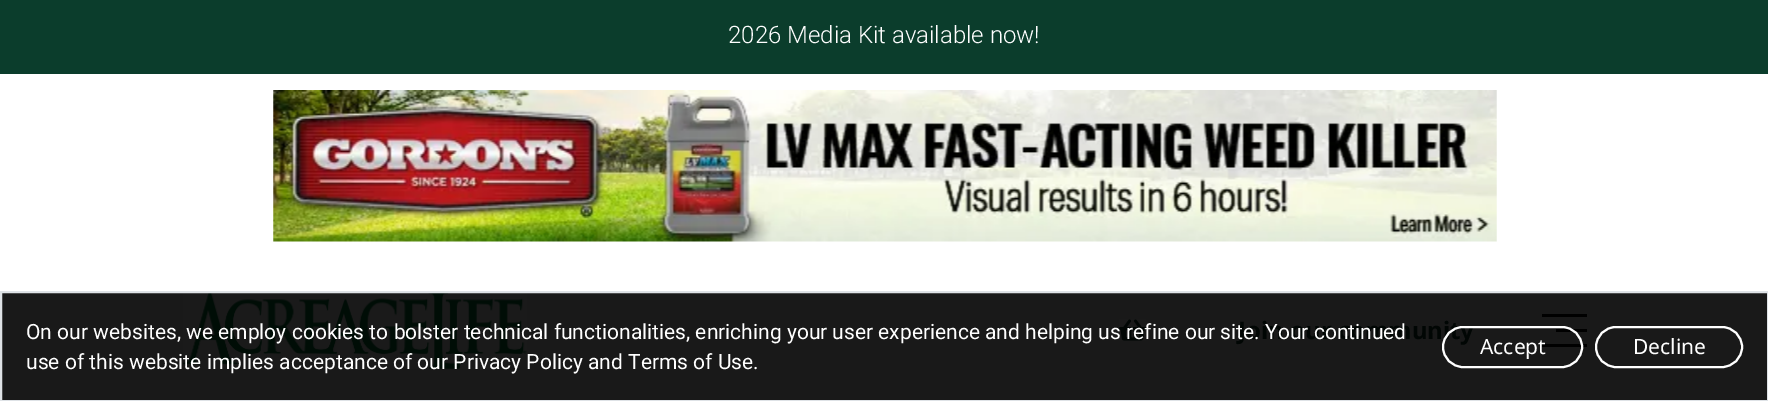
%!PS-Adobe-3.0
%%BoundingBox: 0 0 1768 401
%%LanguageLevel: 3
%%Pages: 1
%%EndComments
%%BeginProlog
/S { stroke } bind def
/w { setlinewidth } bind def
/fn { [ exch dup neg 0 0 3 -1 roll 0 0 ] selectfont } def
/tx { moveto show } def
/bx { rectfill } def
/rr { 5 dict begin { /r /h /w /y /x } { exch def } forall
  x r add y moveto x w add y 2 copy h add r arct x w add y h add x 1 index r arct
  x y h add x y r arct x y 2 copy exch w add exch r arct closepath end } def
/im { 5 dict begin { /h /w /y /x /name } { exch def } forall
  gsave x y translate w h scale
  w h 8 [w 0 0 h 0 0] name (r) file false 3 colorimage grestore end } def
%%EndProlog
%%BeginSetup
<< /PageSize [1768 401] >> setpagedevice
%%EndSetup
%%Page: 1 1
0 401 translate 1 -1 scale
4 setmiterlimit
1 setgray
0 0 1768 401 bx
0.098 setgray
2 293 1765 107 bx
0.043 0.239 0.173 setrgbcolor
0 0 1768 74 bx
/Roboto-Light 24 fn
1 setgray
(2026 Media Kit available now!) 728 43 tx
(image0.raw) 273 90 1224 152 im
(image1.raw) 183 293 344 76 im
(image2.raw) 1119 319 27 22 im
/NotoSans-Bold 24 fn
0.004 0.024 0.016 setrgbcolor
(Join our community) 1238 339 tx
0 setgray
1542 314 45 3 bx
1556 329 31 3 bx
1542 344 45 3 bx
0.871 0.886 0.902 setrgbcolor
2 w
1 292 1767 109 rectstroke
/Roboto-Regular 21 fn
1 setgray
(On our websites, we employ cookies to bolster technical functionalities, enriching your user experience and helping us refine our site. Your continued) 26 339 tx
(use of this website implies acceptance of our Privacy Policy and Terms of Use.) 26 369 tx
1443 327 139 40 20 rr S
/NotoSans-Regular 21 fn
(Accept) 1480 354 tx
1596 327 146 40 20 rr S
(Decline) 1633 354 tx
showpage
%%EOF
